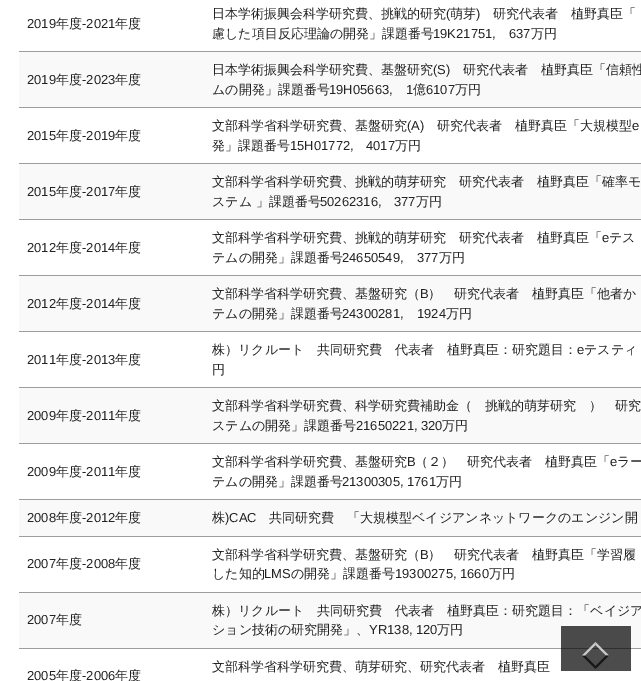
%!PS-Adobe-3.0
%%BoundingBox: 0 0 641 681
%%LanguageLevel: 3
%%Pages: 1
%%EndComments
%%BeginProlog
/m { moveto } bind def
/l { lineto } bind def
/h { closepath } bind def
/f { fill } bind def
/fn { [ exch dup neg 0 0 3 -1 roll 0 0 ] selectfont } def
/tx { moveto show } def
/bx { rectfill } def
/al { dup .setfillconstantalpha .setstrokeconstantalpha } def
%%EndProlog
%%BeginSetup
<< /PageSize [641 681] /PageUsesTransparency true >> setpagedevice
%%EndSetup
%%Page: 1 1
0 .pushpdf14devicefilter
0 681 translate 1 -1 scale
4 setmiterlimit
1 setgray
0 0 641 681 bx
/LiberationSans-Regular 13 fn
0.133 setgray
(2019) 27 28 tx
/WenQuanYiZenHei-Medium 13 fn
(年度) 56 28 tx
/LiberationSans-Regular 13 fn
(-2021) 82 28 tx
/WenQuanYiZenHei-Medium 13 fn
(年度) 115 28 tx
0.616 setgray
19 51 622 1 bx
0.133 setgray
(日本学術振興会科学研究費、挑戦的研究) 212 18 tx
/LiberationSans-Regular 13 fn
(\() 446 18 tx
/WenQuanYiZenHei-Medium 13 fn
(萌芽) 450 18 tx
/LiberationSans-Regular 13 fn
(\)) 476 18 tx
/WenQuanYiZenHei-Medium 13 fn
(研究代表者　植野真臣「) 493 18 tx
(慮した項目反応理論の開発」課題番号) 212 38 tx
/LiberationSans-Regular 13 fn
(19K21751,) 433 38 tx
(637) 509 38 tx
/WenQuanYiZenHei-Medium 13 fn
(万円) 531 38 tx
0.976 setgray
19 52 622 55 bx
/LiberationSans-Regular 13 fn
0.133 setgray
(2019) 27 84 tx
/WenQuanYiZenHei-Medium 13 fn
(年度) 56 84 tx
/LiberationSans-Regular 13 fn
(-2023) 82 84 tx
/WenQuanYiZenHei-Medium 13 fn
(年度) 115 84 tx
0.616 setgray
19 107 622 1 bx
0.133 setgray
(日本学術振興会科学研究費、基盤研究) 212 74 tx
/LiberationSans-Regular 13 fn
(\(S\)) 433 74 tx
/WenQuanYiZenHei-Medium 13 fn
(研究代表者　植野真臣「信頼性) 463 74 tx
(ムの開発」課題番号) 212 94 tx
/LiberationSans-Regular 13 fn
(19H05663,) 329 94 tx
(1) 406 94 tx
/WenQuanYiZenHei-Medium 13 fn
(億) 413 94 tx
/LiberationSans-Regular 13 fn
(6107) 426 94 tx
/WenQuanYiZenHei-Medium 13 fn
(万円) 455 94 tx
/LiberationSans-Regular 13 fn
(2015) 27 140 tx
/WenQuanYiZenHei-Medium 13 fn
(年度) 56 140 tx
/LiberationSans-Regular 13 fn
(-2019) 82 140 tx
/WenQuanYiZenHei-Medium 13 fn
(年度) 115 140 tx
0.616 setgray
19 163 622 1 bx
0.133 setgray
(文部科学省科学研究費、基盤研究) 212 130 tx
/LiberationSans-Regular 13 fn
(\(A\)) 407 130 tx
/WenQuanYiZenHei-Medium 13 fn
(研究代表者　植野真臣「大規模型) 437 130 tx
/LiberationSans-Regular 13 fn
(e) 632 130 tx
/WenQuanYiZenHei-Medium 13 fn
(発」課題番号) 212 150 tx
/LiberationSans-Regular 13 fn
(15H01772,) 290 150 tx
(4017) 366 150 tx
/WenQuanYiZenHei-Medium 13 fn
(万円) 395 150 tx
0.976 setgray
19 164 622 55 bx
/LiberationSans-Regular 13 fn
0.133 setgray
(2015) 27 196 tx
/WenQuanYiZenHei-Medium 13 fn
(年度) 56 196 tx
/LiberationSans-Regular 13 fn
(-2017) 82 196 tx
/WenQuanYiZenHei-Medium 13 fn
(年度) 115 196 tx
0.616 setgray
19 219 622 1 bx
0.133 setgray
(文部科学省科学研究費、挑戦的萌芽研究　研究代表者　植野真臣「確率モ) 212 186 tx
(ステム 」課題番号) 212 206 tx
/LiberationSans-Regular 13 fn
(50262316,) 320 206 tx
(377) 394 206 tx
/WenQuanYiZenHei-Medium 13 fn
(万円) 416 206 tx
/LiberationSans-Regular 13 fn
(2012) 27 252 tx
/WenQuanYiZenHei-Medium 13 fn
(年度) 56 252 tx
/LiberationSans-Regular 13 fn
(-2014) 82 252 tx
/WenQuanYiZenHei-Medium 13 fn
(年度) 115 252 tx
0.616 setgray
19 275 622 1 bx
0.133 setgray
(文部科学省科学研究費、挑戦的萌芽研究　研究代表者　植野真臣「) 212 242 tx
/LiberationSans-Regular 13 fn
(e) 602 242 tx
/WenQuanYiZenHei-Medium 13 fn
(テス) 609 242 tx
(テムの開発」課題番号) 212 262 tx
/LiberationSans-Regular 13 fn
(24650549,) 342 262 tx
(377) 417 262 tx
/WenQuanYiZenHei-Medium 13 fn
(万円) 439 262 tx
0.976 setgray
19 276 622 55 bx
/LiberationSans-Regular 13 fn
0.133 setgray
(2012) 27 308 tx
/WenQuanYiZenHei-Medium 13 fn
(年度) 56 308 tx
/LiberationSans-Regular 13 fn
(-2014) 82 308 tx
/WenQuanYiZenHei-Medium 13 fn
(年度) 115 308 tx
0.616 setgray
19 331 622 1 bx
0.133 setgray
(文部科学省科学研究費、基盤研究（) 212 298 tx
/LiberationSans-Regular 13 fn
(B) 420 298 tx
/WenQuanYiZenHei-Medium 13 fn
(）　研究代表者　植野真臣「他者か) 428 298 tx
(テムの開発」課題番号) 212 318 tx
/LiberationSans-Regular 13 fn
(24300281,) 342 318 tx
(1924) 417 318 tx
/WenQuanYiZenHei-Medium 13 fn
(万円) 446 318 tx
/LiberationSans-Regular 13 fn
(2011) 27 364 tx
/WenQuanYiZenHei-Medium 13 fn
(年度) 56 364 tx
/LiberationSans-Regular 13 fn
(-2013) 82 364 tx
/WenQuanYiZenHei-Medium 13 fn
(年度) 115 364 tx
0.616 setgray
19 387 622 1 bx
0.133 setgray
(株）リクルート　共同研究費　代表者　植野真臣：研究題目：) 212 354 tx
/LiberationSans-Regular 13 fn
(e) 577 354 tx
/WenQuanYiZenHei-Medium 13 fn
(テスティ) 584 354 tx
(円) 212 374 tx
0.976 setgray
19 388 622 55 bx
/LiberationSans-Regular 13 fn
0.133 setgray
(2009) 27 420 tx
/WenQuanYiZenHei-Medium 13 fn
(年度) 56 420 tx
/LiberationSans-Regular 13 fn
(-2011) 82 420 tx
/WenQuanYiZenHei-Medium 13 fn
(年度) 115 420 tx
0.616 setgray
19 443 622 1 bx
0.133 setgray
(文部科学省科学研究費、科学研究費補助金（　挑戦的萌芽研究　）　研究) 212 410 tx
(ステムの開発」課題番号) 212 430 tx
/LiberationSans-Regular 13 fn
(21650221, 320) 356 430 tx
/WenQuanYiZenHei-Medium 13 fn
(万円) 442 430 tx
/LiberationSans-Regular 13 fn
(2009) 27 476 tx
/WenQuanYiZenHei-Medium 13 fn
(年度) 56 476 tx
/LiberationSans-Regular 13 fn
(-2011) 82 476 tx
/WenQuanYiZenHei-Medium 13 fn
(年度) 115 476 tx
0.616 setgray
19 499 622 1 bx
0.133 setgray
(文部科学省科学研究費、基盤研究) 212 466 tx
/LiberationSans-Regular 13 fn
(B) 407 466 tx
/WenQuanYiZenHei-Medium 13 fn
(（２）　研究代表者　植野真臣「) 415 466 tx
/LiberationSans-Regular 13 fn
(e) 610 466 tx
/WenQuanYiZenHei-Medium 13 fn
(ラー) 617 466 tx
(テムの開発」課題番号) 212 486 tx
/LiberationSans-Regular 13 fn
(21300305, 1761) 342 486 tx
/WenQuanYiZenHei-Medium 13 fn
(万円) 436 486 tx
0.976 setgray
19 500 622 36 bx
/LiberationSans-Regular 13 fn
0.133 setgray
(2008) 27 522 tx
/WenQuanYiZenHei-Medium 13 fn
(年度) 56 522 tx
/LiberationSans-Regular 13 fn
(-2012) 82 522 tx
/WenQuanYiZenHei-Medium 13 fn
(年度) 115 522 tx
0.616 setgray
19 536 622 1 bx
0.133 setgray
(株) 212 522 tx
/LiberationSans-Regular 13 fn
(\)CAC) 225 522 tx
/WenQuanYiZenHei-Medium 13 fn
(共同研究費　「大規模型ベイジアンネットワークのエンジン開) 269 522 tx
/LiberationSans-Regular 13 fn
(2007) 27 568 tx
/WenQuanYiZenHei-Medium 13 fn
(年度) 56 568 tx
/LiberationSans-Regular 13 fn
(-2008) 82 568 tx
/WenQuanYiZenHei-Medium 13 fn
(年度) 115 568 tx
0.616 setgray
19 592 622 1 bx
0.133 setgray
(文部科学省科学研究費、基盤研究（) 212 559 tx
/LiberationSans-Regular 13 fn
(B) 420 559 tx
/WenQuanYiZenHei-Medium 13 fn
(）　研究代表者　植野真臣「学習履) 428 559 tx
(した知的) 212 578 tx
/LiberationSans-Regular 13 fn
(LMS) 264 578 tx
/WenQuanYiZenHei-Medium 13 fn
(の開発」課題番号) 291 578 tx
/LiberationSans-Regular 13 fn
(19300275, 1660) 395 578 tx
/WenQuanYiZenHei-Medium 13 fn
(万円) 489 578 tx
0.976 setgray
19 593 622 55 bx
/LiberationSans-Regular 13 fn
0.133 setgray
(2007) 27 624 tx
/WenQuanYiZenHei-Medium 13 fn
(年度) 56 624 tx
0.616 setgray
19 648 622 1 bx
0.133 setgray
(株）リクルート　共同研究費　代表者　植野真臣：研究題目：「ベイジア) 212 615 tx
(ション技術の研究開発」、) 212 634 tx
/LiberationSans-Regular 13 fn
(YR138, 120) 369 634 tx
/WenQuanYiZenHei-Medium 13 fn
(万円) 437 634 tx
/LiberationSans-Regular 13 fn
(2005) 27 680 tx
/WenQuanYiZenHei-Medium 13 fn
(年度) 56 680 tx
/LiberationSans-Regular 13 fn
(-2006) 82 680 tx
/WenQuanYiZenHei-Medium 13 fn
(年度) 115 680 tx
(文部科学省科学研究費、萌芽研究、研究代表者　植野真臣) 212 671 tx
0.7 al
0 setgray
561 626 70 45 bx
1 setgray
595.5 642 m 609 655.5 l 606 655.5 l 595.5 645 l h f
0 setgray
609 655.5 m 595.5 669 l 595.5 666 l 606 655.5 l h f
595.5 669 m 582 655.5 l 585 655.5 l 595.5 666 l h f
1 setgray
582 655.5 m 595.5 642 l 595.5 645 l 585 655.5 l h f
.poppdf14devicefilter showpage
%%EOF
